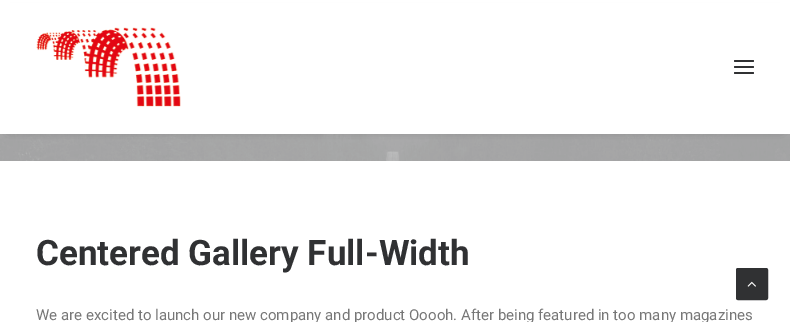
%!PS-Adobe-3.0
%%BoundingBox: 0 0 790 322
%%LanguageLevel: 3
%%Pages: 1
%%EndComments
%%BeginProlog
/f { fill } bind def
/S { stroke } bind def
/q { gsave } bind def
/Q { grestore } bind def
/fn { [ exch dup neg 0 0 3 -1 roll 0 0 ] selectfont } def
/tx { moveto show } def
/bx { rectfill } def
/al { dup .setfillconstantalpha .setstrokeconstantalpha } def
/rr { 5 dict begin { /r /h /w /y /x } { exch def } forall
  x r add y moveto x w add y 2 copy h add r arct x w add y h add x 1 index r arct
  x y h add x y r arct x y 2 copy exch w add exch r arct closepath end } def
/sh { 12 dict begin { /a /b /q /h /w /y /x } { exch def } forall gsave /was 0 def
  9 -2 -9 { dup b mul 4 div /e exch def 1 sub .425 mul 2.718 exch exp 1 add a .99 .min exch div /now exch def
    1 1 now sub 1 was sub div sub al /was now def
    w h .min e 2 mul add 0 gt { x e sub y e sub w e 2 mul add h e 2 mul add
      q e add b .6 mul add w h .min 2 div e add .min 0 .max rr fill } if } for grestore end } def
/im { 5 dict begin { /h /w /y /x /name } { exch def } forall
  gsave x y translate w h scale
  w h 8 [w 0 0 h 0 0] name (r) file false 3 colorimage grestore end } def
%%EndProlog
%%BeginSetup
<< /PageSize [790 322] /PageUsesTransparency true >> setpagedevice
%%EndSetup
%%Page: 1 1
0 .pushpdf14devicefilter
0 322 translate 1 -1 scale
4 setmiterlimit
1 setgray
0 0 790 322 bx
(image1.raw) 0 134 790 27 im
0 setgray
10 14 770 114 0 5 0.6 sh
1 setgray
0 3 790 131 bx
(image0.raw) 36 27 145 80 im
0.188 0.192 0.2 setrgbcolor
734 66 20 2 1 rr f
734 60 20 2 1 rr f
734 72 20 2 1 rr f
/Roboto-Bold 35 fn
(Centered Gallery Full-Width) 36 265 tx
/Roboto-Regular 15 fn
0.467 setgray
(We are excited to launch our new company and product Ooooh. After being featured in too many magazines) 36 320 tx
0.188 0.192 0.2 setrgbcolor
736.5 268.5 31 31 1.5 rr q f Q
S
(image2.raw) 747 281 9 6 im
.poppdf14devicefilter showpage
%%EOF
